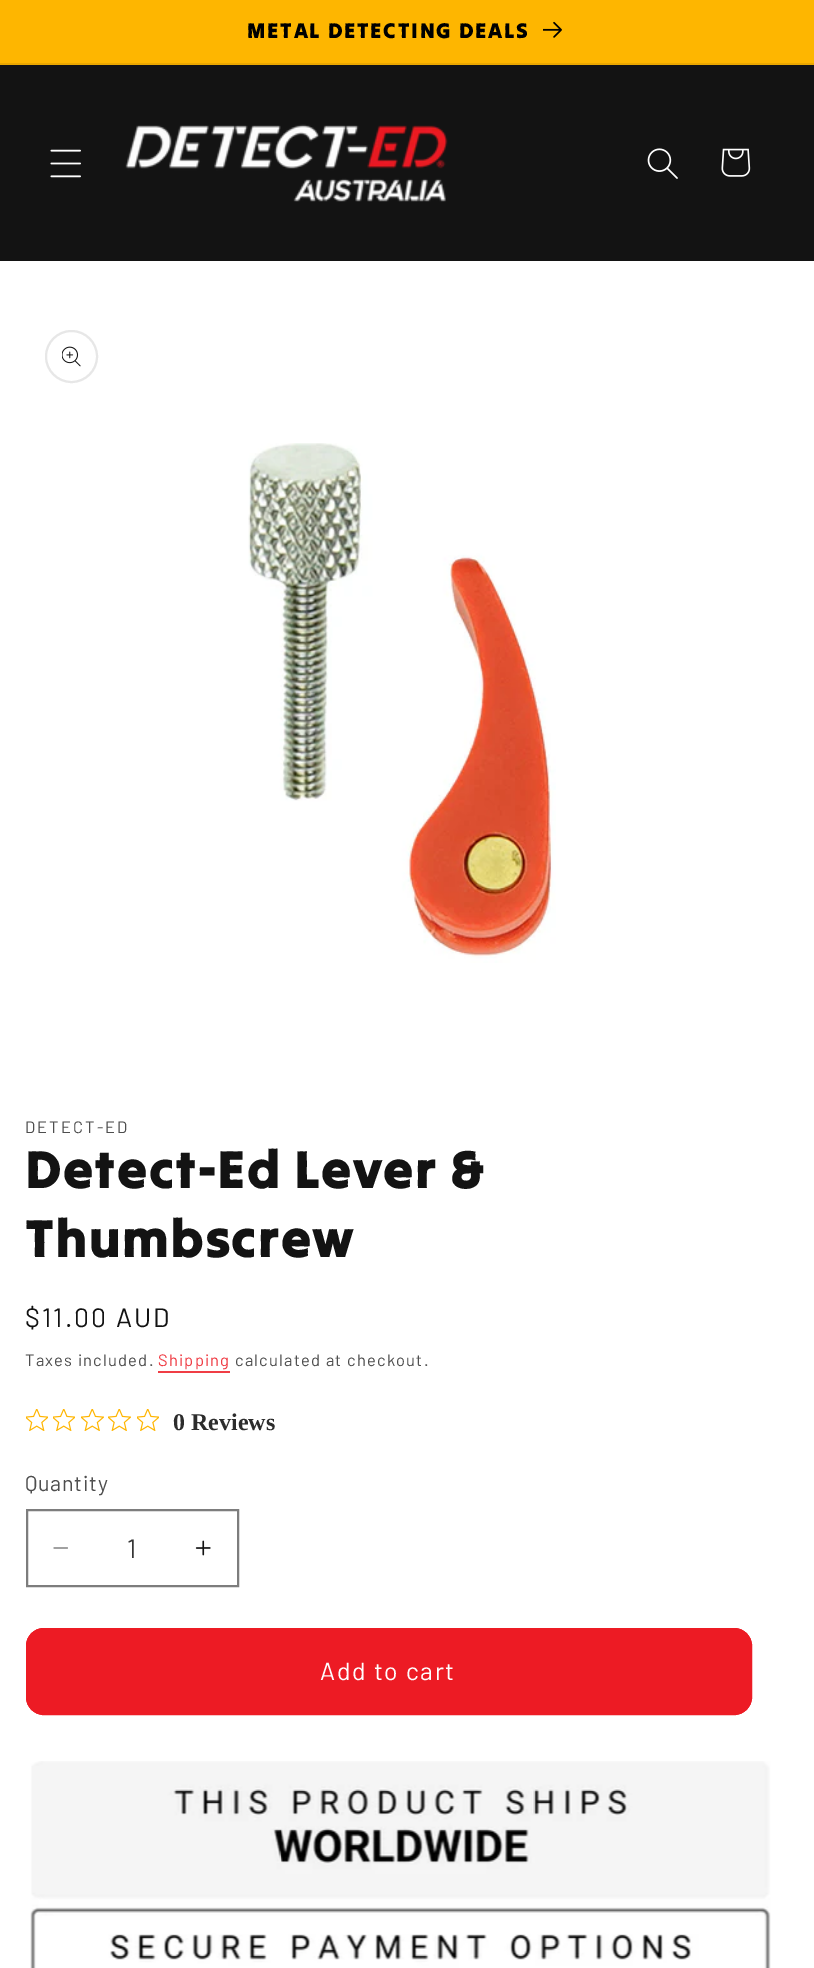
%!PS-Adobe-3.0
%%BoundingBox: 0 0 814 1968
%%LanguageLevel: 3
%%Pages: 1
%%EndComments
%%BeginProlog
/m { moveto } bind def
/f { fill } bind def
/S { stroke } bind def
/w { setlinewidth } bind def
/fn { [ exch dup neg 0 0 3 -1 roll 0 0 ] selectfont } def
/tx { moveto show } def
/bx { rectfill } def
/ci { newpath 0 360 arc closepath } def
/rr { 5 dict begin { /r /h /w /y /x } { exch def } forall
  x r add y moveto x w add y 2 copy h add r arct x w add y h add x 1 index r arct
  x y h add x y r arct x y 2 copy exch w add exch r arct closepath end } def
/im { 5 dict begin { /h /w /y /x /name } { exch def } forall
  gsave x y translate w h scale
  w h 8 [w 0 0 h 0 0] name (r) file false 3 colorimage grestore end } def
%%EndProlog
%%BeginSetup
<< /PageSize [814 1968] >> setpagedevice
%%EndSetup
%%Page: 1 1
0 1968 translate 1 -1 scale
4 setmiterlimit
1 setgray
0 0 814 1968 bx
0.996 0.714 0 setrgbcolor
0 0 814 63 bx
0.918 0.655 0 setrgbcolor
0 63 814 2 bx
/TiltWarp-Regular 21.6 fn
0 setgray
247 38 m 1.65 0 (METAL DETECTING DEALS) ashow
(image0.raw) 543 21 19 17 im
0.075 setgray
0 65 814 196 bx
(image1.raw) 50 149 31 29 im
(image2.raw) 125 124 323 78 im
(image3.raw) 647 148 31 31 im
(image4.raw) 721 148 30 29 im
0.906 setgray
2 w
71.5 356.5 25.5 ci S
(image5.raw) 62 346 19 21 im
(image6.raw) 248 443 308 520 im
/Barlow-Regular 16.5 fn
0.306 setgray
25 1133 m 2.1 0 (DETECT-ED) ashow
/TiltWarp-Regular 54 fn
0.075 setgray
25 1188 m 1.1 0 (Detect-Ed Lever &) ashow
25 1257 m 1.1 0 (Thumbscrew) ashow
/Barlow-Regular 26.5 fn
25 1327 m 2.1 0 ($11.00 AUD) ashow
/Barlow-Regular 16.5 fn
0.306 setgray
25 1366 m 1.2 0 (Taxes included.) ashow
0.941 0.239 0.271 setrgbcolor
158 1366 m 1.2 0 (Shipping) ashow
158 1371 72 2 bx
0.306 setgray
235 1366 m 1.2 0 (calculated at checkout.) ashow
(image7.raw) 26 1409 22 22 im
(image7.raw) 53 1409 22 22 im
(image8.raw) 81 1409 23 22 im
(image8.raw) 108 1409 23 22 im
(image7.raw) 137 1409 22 22 im
/LiberationSerif-Bold 24 fn
0.173 setgray
(0 Reviews) 173 1430 tx
/Barlow-Regular 21.5 fn
0.306 setgray
25 1491 m 0.75 0 (Quantity) ashow
(image9.raw) 53 1547 15 2 im
(image10.raw) 195 1540 16 16 im
0.49 setgray
27 1510 211 76 rectstroke
/Barlow-Regular 26.5 fn
0.212 setgray
(1) 127 1558 tx
0.929 0.106 0.141 setrgbcolor
26 1628 726 87 18 rr f
6 w
29 1631 720 81 15 rr S
/Barlow-Regular 24.75 fn
1 setgray
320 1680 m 1.65 0 (Add to cart) ashow
(image11.raw) 30 1761 741 207 im
showpage
%%EOF
